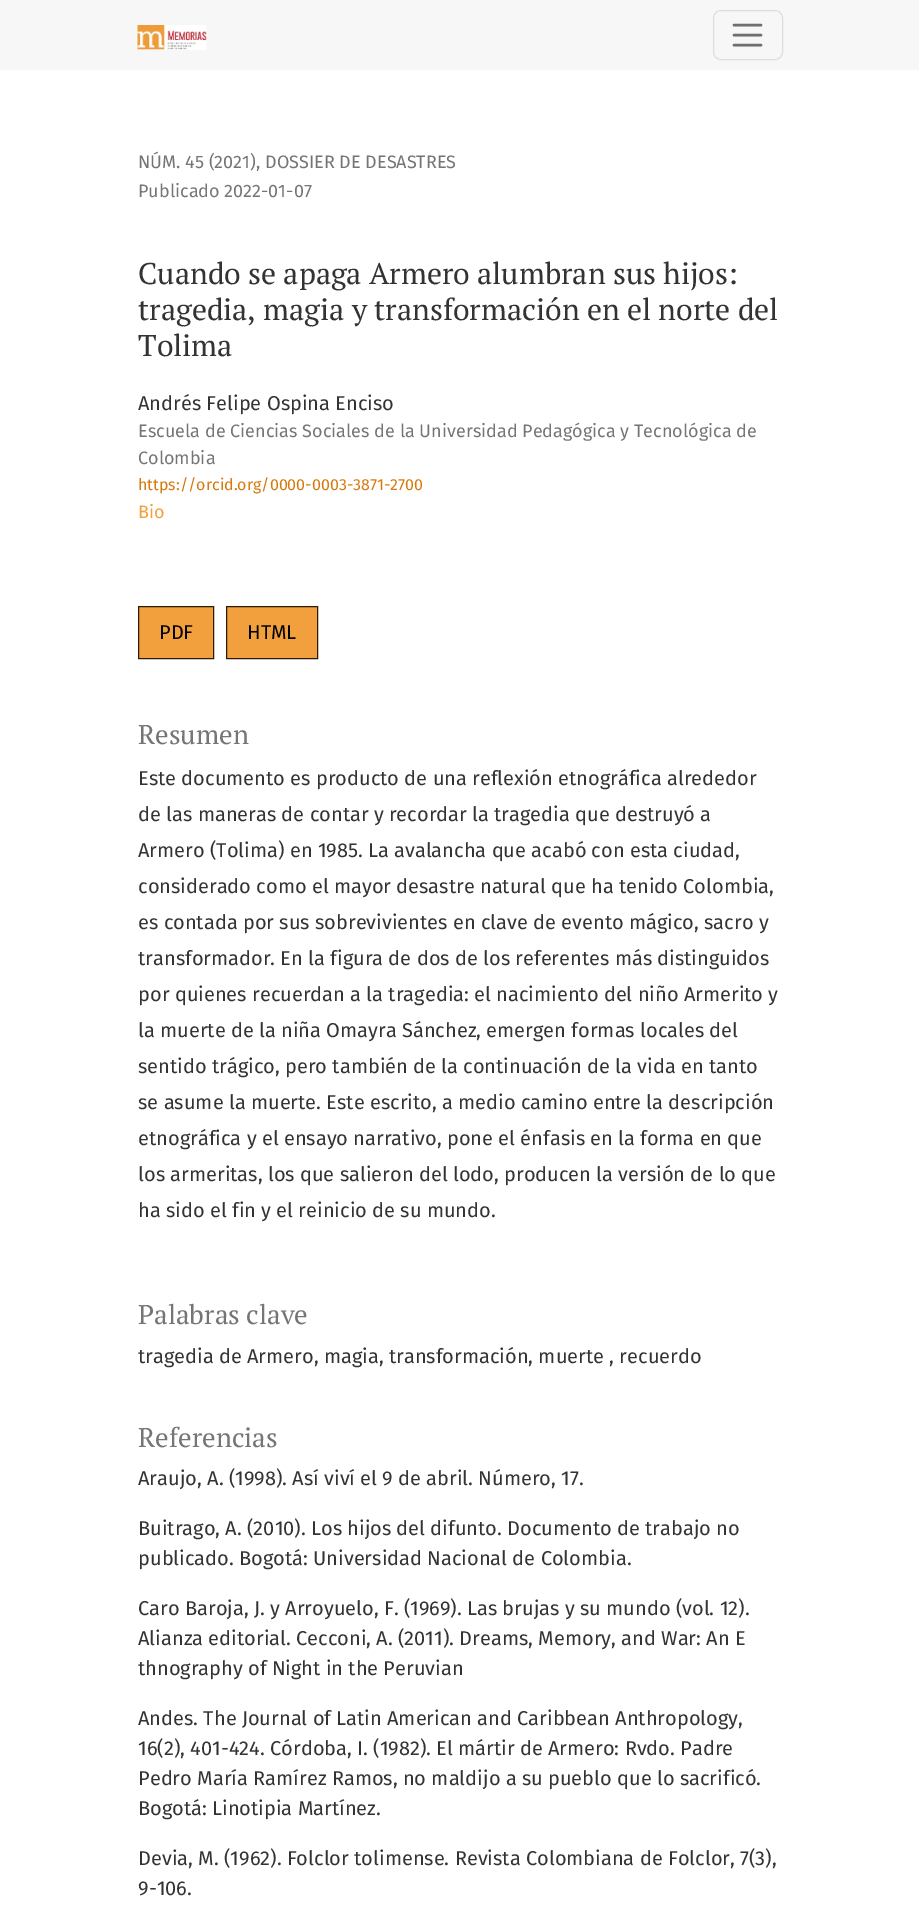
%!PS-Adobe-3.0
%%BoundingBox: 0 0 919 1916
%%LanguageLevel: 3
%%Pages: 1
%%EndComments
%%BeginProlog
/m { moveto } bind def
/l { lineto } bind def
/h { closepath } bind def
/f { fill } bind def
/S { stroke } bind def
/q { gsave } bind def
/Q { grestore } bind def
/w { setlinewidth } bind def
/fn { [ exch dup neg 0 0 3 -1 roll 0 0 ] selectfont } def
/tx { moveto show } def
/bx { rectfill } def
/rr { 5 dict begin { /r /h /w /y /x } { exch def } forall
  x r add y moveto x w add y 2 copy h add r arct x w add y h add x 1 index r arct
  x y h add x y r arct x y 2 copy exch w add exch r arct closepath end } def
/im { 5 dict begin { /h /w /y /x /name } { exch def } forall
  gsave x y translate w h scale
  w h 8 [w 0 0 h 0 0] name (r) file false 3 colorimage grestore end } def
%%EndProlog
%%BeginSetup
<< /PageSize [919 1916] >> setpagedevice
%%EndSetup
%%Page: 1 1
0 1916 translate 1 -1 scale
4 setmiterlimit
1 setgray
0 0 919 1916 bx
0.969 setgray
0 0 919 70 bx
(image0.raw) 137 25 70 25 im
0.871 setgray
713.5 10.5 69 49 7.5 rr S
0.435 setgray
2.5 w
1 setlinecap
734 25 m 761 25 l 734 35 m 761 35 l 734 45 m 761 45 l S
/FiraSans-Regular 18 fn
0.459 setgray
(NÚM. 45 \(2021\), DOSSIER DE DESASTRES) 138 168 tx
(Publicado 2022-01-07) 138 197 tx
/PTSerif-Regular 30 fn
0.2 setgray
(Cuando se apaga Armero alumbran sus hijos:) 138 284 tx
(tragedia, magia y transformación en el norte del) 138 320 tx
(Tolima) 138 356 tx
/FiraSans-Regular 20 fn
(Andrés Felipe Ospina Enciso) 138 410 tx
/FiraSans-Regular 18 fn
0.459 setgray
(Escuela de Ciencias Sociales de la Universidad Pedagógica y Tecnológica de) 138 437 tx
(Colombia) 138 464 tx
/FiraSans-Regular 16 fn
0.835 0.482 0.055 setrgbcolor
(https://orcid.org/0000-0003-3871-2700) 138 490 tx
/FiraSans-Regular 18 fn
0.949 0.627 0.243 setrgbcolor
(Bio) 138 518 tx
138.5 606.5 m 213.5 606.5 l 213.5 658.5 l 138.5 658.5 l h q f Q
0.18 0.102 0.012 setrgbcolor
1 w
0 setlinecap
S
/FiraSans-Regular 20 fn
0 setgray
(PDF) 159 639 tx
0.949 0.627 0.243 setrgbcolor
226.5 606.5 m 317.5 606.5 l 317.5 658.5 l 226.5 658.5 l h q f Q
0.18 0.102 0.012 setrgbcolor
S
0 setgray
(HTML) 247 639 tx
/PTSerif-Regular 27 fn
0.459 setgray
(Resumen) 138 744 tx
/FiraSans-Regular 20 fn
0.2 setgray
(Este documento es producto de una reflexión etnográfica alrededor) 138 785 tx
(de las maneras de contar y recordar la tragedia que destruyó a) 138 821 tx
(Armero \(Tolima\) en 1985. La avalancha que acabó con esta ciudad,) 138 857 tx
(considerado como el mayor desastre natural que ha tenido Colombia,) 138 893 tx
(es contada por sus sobrevivientes en clave de evento mágico, sacro y) 138 929 tx
(transformador. En la figura de dos de los referentes más distinguidos) 138 965 tx
(por quienes recuerdan a la tragedia: el nacimiento del niño Armerito y) 138 1001 tx
(la muerte de la niña Omayra Sánchez, emergen formas locales del) 138 1037 tx
(sentido trágico, pero también de la continuación de la vida en tanto) 138 1073 tx
(se asume la muerte. Este escrito, a medio camino entre la descripción) 138 1109 tx
(etnográfica y el ensayo narrativo, pone el énfasis en la forma en que) 138 1145 tx
(los armeritas, los que salieron del lodo, producen la versión de lo que) 138 1181 tx
(ha sido el fin y el reinicio de su mundo.) 138 1217 tx
/PTSerif-Regular 27 fn
0.459 setgray
(Palabras clave) 138 1324 tx
/FiraSans-Regular 20 fn
0.2 setgray
(tragedia de Armero, magia, transformación, muerte , recuerdo) 138 1363 tx
/PTSerif-Regular 27 fn
0.459 setgray
(Referencias) 138 1447 tx
/FiraSans-Regular 20 fn
0.2 setgray
(Araujo, A. \(1998\). Así viví el 9 de abril. Número, 17.) 138 1485 tx
(Buitrago, A. \(2010\). Los hijos del difunto. Documento de trabajo no) 138 1535 tx
(publicado. Bogotá: Universidad Nacional de Colombia.) 138 1565 tx
(Caro Baroja, J. y Arroyuelo, F. \(1969\). Las brujas y su mundo \(vol. 12\).) 138 1615 tx
(Alianza editorial. Cecconi, A. \(2011\). Dreams, Memory, and War: An E) 138 1645 tx
(thnography of Night in the Peruvian) 138 1675 tx
(Andes. The Journal of Latin American and Caribbean Anthropology,) 138 1725 tx
(16\(2\), 401-424. Córdoba, I. \(1982\). El mártir de Armero: Rvdo. Padre) 138 1755 tx
(Pedro María Ramírez Ramos, no maldijo a su pueblo que lo sacrificó.) 138 1785 tx
(Bogotá: Linotipia Martínez.) 138 1815 tx
(Devia, M. \(1962\). Folclor tolimense. Revista Colombiana de Folclor, 7\(3\),) 138 1865 tx
(9-106.) 138 1895 tx
showpage
%%EOF
